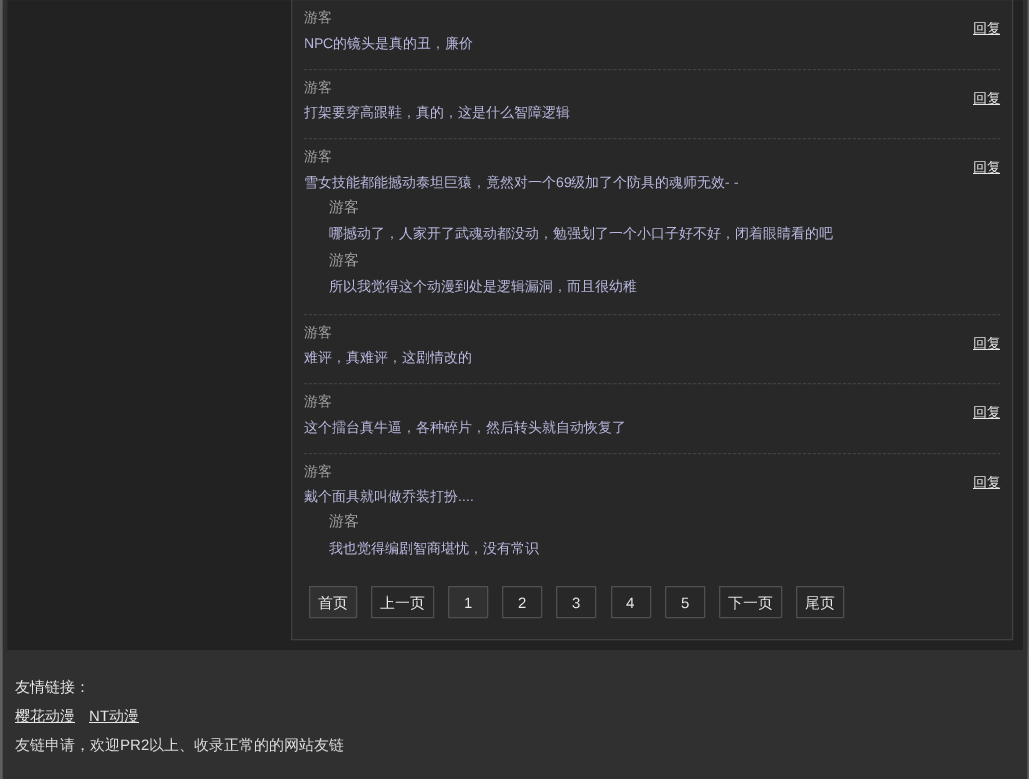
%!PS-Adobe-3.0
%%BoundingBox: 0 0 1029 779
%%LanguageLevel: 3
%%Pages: 1
%%EndComments
%%BeginProlog
/m { moveto } bind def
/l { lineto } bind def
/h { closepath } bind def
/f { fill } bind def
/S { stroke } bind def
/q { gsave } bind def
/Q { grestore } bind def
/w { setlinewidth } bind def
/fn { [ exch dup neg 0 0 3 -1 roll 0 0 ] selectfont } def
/tx { moveto show } def
/bx { rectfill } def
/al { dup .setfillconstantalpha .setstrokeconstantalpha } def
/rr { 5 dict begin { /r /h /w /y /x } { exch def } forall
  x r add y moveto x w add y 2 copy h add r arct x w add y h add x 1 index r arct
  x y h add x y r arct x y 2 copy exch w add exch r arct closepath end } def
/sh { 12 dict begin { /a /b /q /h /w /y /x } { exch def } forall gsave /was 0 def
  9 -2 -9 { dup b mul 4 div /e exch def 1 sub .425 mul 2.718 exch exp 1 add a .99 .min exch div /now exch def
    1 1 now sub 1 was sub div sub al /was now def
    w h .min e 2 mul add 0 gt { x e sub y e sub w e 2 mul add h e 2 mul add
      q e add b .6 mul add w h .min 2 div e add .min 0 .max rr fill } if } for grestore end } def
%%EndProlog
%%BeginSetup
<< /PageSize [1029 779] /PageUsesTransparency true >> setpagedevice
%%EndSetup
%%Page: 1 1
0 .pushpdf14devicefilter
0 779 translate 1 -1 scale
4 setmiterlimit
0.376 0.376 0.38 setrgbcolor
0 0 1029 779 bx
0.125 setgray
3 -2 1024 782 0 0.5 1 sh
0.188 setgray
4 w
5 -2 1020 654 rectstroke
0.157 setgray
291.5 -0.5 m 1012.5 -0.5 l 1012.5 639.5 l 291.5 639.5 l h q f Q
0.251 0.251 0.255 setrgbcolor
1 w
S
/WenQuanYiZenHei-Medium 14 fn
0.627 setgray
(游客) 304 22 tx
0.91 0.91 0.914 setrgbcolor
973 34 27 1 bx
(回复) 973 33 tx
/LiberationSans-Regular 14 fn
0.722 0.722 0.878 setrgbcolor
(NPC) 304 48 tx
/WenQuanYiZenHei-Medium 14 fn
(的镜头是真的丑，廉价) 333 48 tx
0.251 0.251 0.255 setrgbcolor
[3 1.99] 0 setdash
304 69.5 m 1000 69.5 l S
0.627 setgray
(游客) 304 92 tx
0.91 0.91 0.914 setrgbcolor
973 104 27 1 bx
(回复) 973 103 tx
0.722 0.722 0.878 setrgbcolor
(打架要穿高跟鞋，真的，这是什么智障逻辑) 304 117 tx
0.251 0.251 0.255 setrgbcolor
304 138.5 m 1000 138.5 l S
0.627 setgray
(游客) 304 161 tx
0.91 0.91 0.914 setrgbcolor
973 173 27 1 bx
(回复) 973 172 tx
0.722 0.722 0.878 setrgbcolor
(雪女技能都能撼动泰坦巨猿，竟然对一个) 304 187 tx
/LiberationSans-Regular 14 fn
(69) 556 187 tx
/WenQuanYiZenHei-Medium 14 fn
(级加了个防具的魂师无效) 571 187 tx
/LiberationSans-Regular 14 fn
(- -) 725 187 tx
/WenQuanYiZenHei-Medium 15 fn
0.627 setgray
(游客) 329 212 tx
/WenQuanYiZenHei-Medium 14 fn
0.722 0.722 0.878 setrgbcolor
(哪撼动了，人家开了武魂动都没动，勉强划了一个小口子好不好，闭着眼睛看的吧) 329 238 tx
/WenQuanYiZenHei-Medium 15 fn
0.627 setgray
(游客) 329 265 tx
/WenQuanYiZenHei-Medium 14 fn
0.722 0.722 0.878 setrgbcolor
(所以我觉得这个动漫到处是逻辑漏洞，而且很幼稚) 329 291 tx
0.251 0.251 0.255 setrgbcolor
304 314.5 m 1000 314.5 l S
0.627 setgray
(游客) 304 337 tx
0.91 0.91 0.914 setrgbcolor
973 349 27 1 bx
(回复) 973 348 tx
0.722 0.722 0.878 setrgbcolor
(难评，真难评，这剧情改的) 304 362 tx
0.251 0.251 0.255 setrgbcolor
304 383.5 m 1000 383.5 l S
0.627 setgray
(游客) 304 406 tx
0.91 0.91 0.914 setrgbcolor
973 418 27 1 bx
(回复) 973 417 tx
0.722 0.722 0.878 setrgbcolor
(这个擂台真牛逼，各种碎片，然后转头就自动恢复了) 304 432 tx
0.251 0.251 0.255 setrgbcolor
304 453.5 m 1000 453.5 l S
0.627 setgray
(游客) 304 476 tx
0.91 0.91 0.914 setrgbcolor
973 488 27 1 bx
(回复) 973 487 tx
0.722 0.722 0.878 setrgbcolor
(戴个面具就叫做乔装打扮) 304 501 tx
/LiberationSans-Regular 14 fn
(....) 458 501 tx
/WenQuanYiZenHei-Medium 15 fn
0.627 setgray
(游客) 329 526 tx
/WenQuanYiZenHei-Medium 14 fn
0.722 0.722 0.878 setrgbcolor
(我也觉得编剧智商堪忧，没有常识) 329 553 tx
0.192 0.192 0.196 setrgbcolor
309.5 586.5 47 31 0.5 rr q f Q
0.314 0.314 0.318 setrgbcolor
[] 0 setdash
S
/WenQuanYiZenHei-Medium 15 fn
0.91 0.91 0.914 setrgbcolor
(首页) 318 608 tx
0.314 0.314 0.318 setrgbcolor
371.5 586.5 62 31 0.5 rr S
0.91 0.91 0.914 setrgbcolor
(上一页) 380 608 tx
0.192 0.192 0.196 setrgbcolor
448.5 586.5 39 31 0.5 rr q f Q
0.314 0.314 0.318 setrgbcolor
S
/LiberationSans-Regular 15 fn
0.91 0.91 0.914 setrgbcolor
(1) 464 608 tx
0.314 0.314 0.318 setrgbcolor
502.5 586.5 39 31 0.5 rr S
0.91 0.91 0.914 setrgbcolor
(2) 518 608 tx
0.314 0.314 0.318 setrgbcolor
556.5 586.5 39 31 0.5 rr S
0.91 0.91 0.914 setrgbcolor
(3) 572 608 tx
0.314 0.314 0.318 setrgbcolor
611.5 586.5 39 31 0.5 rr S
0.91 0.91 0.914 setrgbcolor
(4) 626 608 tx
0.314 0.314 0.318 setrgbcolor
665.5 586.5 39 31 0.5 rr S
0.91 0.91 0.914 setrgbcolor
(5) 681 608 tx
0.314 0.314 0.318 setrgbcolor
719.5 586.5 62 31 0.5 rr S
/WenQuanYiZenHei-Medium 15 fn
0.91 0.91 0.914 setrgbcolor
(下一页) 728 608 tx
0.314 0.314 0.318 setrgbcolor
796.5 586.5 47 31 0.5 rr S
0.91 0.91 0.914 setrgbcolor
(尾页) 805 608 tx
0.188 setgray
3 654 1024 125 bx
0.91 0.91 0.914 setrgbcolor
(友情链接：) 15 692 tx
15 722 60 1 bx
(樱花动漫) 15 721 tx
/LiberationSans-Regular 15 fn
(NT) 89 721 tx
89 722 50 1 bx
/WenQuanYiZenHei-Medium 15 fn
(动漫) 109 721 tx
0.867 setgray
(友链申请，欢迎) 15 750 tx
/LiberationSans-Regular 15 fn
(PR2) 120 750 tx
/WenQuanYiZenHei-Medium 15 fn
(以上、收录正常的的网站友链) 149 750 tx
.poppdf14devicefilter showpage
%%EOF
